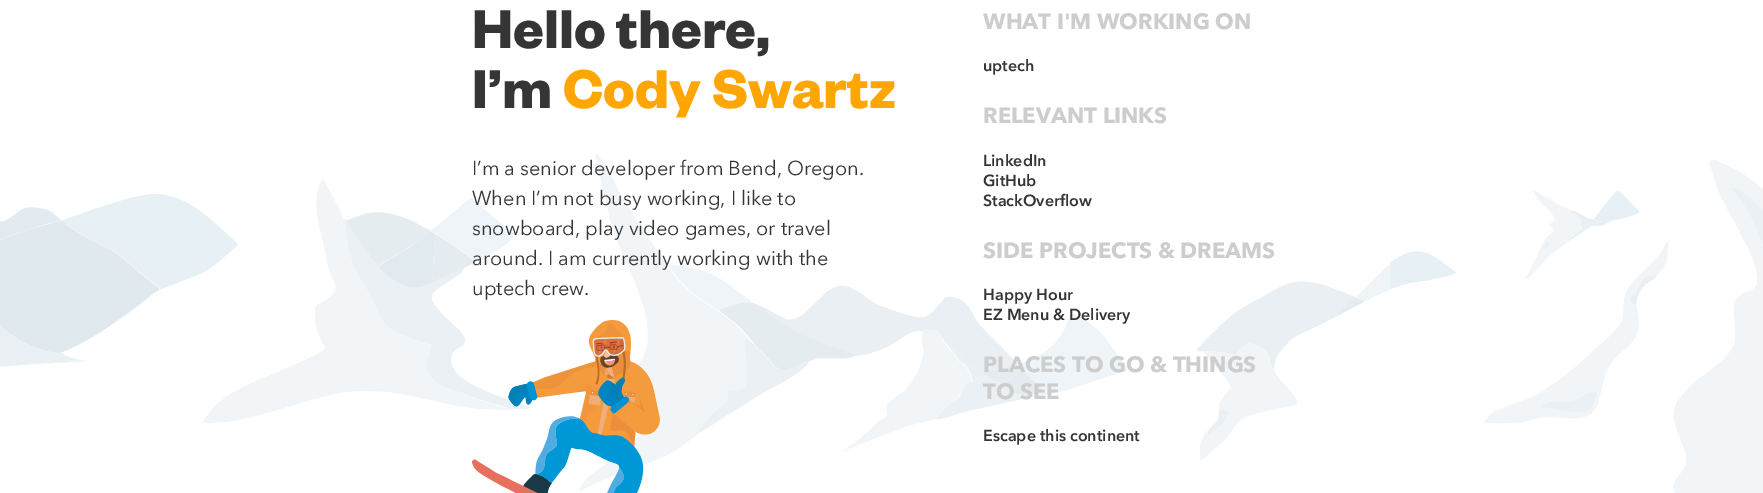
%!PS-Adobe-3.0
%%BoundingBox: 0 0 1763 493
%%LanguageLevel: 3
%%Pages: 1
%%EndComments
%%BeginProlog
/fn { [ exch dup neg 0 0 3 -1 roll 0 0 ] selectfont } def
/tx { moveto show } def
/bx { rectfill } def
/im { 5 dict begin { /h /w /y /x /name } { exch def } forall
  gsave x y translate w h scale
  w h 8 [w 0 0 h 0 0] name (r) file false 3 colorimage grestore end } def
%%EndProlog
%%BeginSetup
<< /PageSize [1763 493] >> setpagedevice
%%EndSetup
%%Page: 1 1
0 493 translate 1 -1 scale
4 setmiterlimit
1 setgray
0 0 1763 493 bx
(image0.raw) 0 154 1763 339 im
/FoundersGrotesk-Bold 60 fn
0.208 setgray
(Hello there,) 472 48 tx
(I’m) 472 108 tx
1 0.651 0.012 setrgbcolor
(Cody Swartz) 563 108 tx
/AvenirNext-Regular 20 fn
0.208 setgray
(I’m a senior developer from Bend, Oregon.) 472 175 tx
(When I’m not busy working, I like to) 472 205 tx
(snowboard, play video games, or travel) 472 235 tx
(around. I am currently working with the) 472 265 tx
(uptech crew.) 472 295 tx
(image1.raw) 472 320 188 173 im
/AvenirNext-Bold 22 fn
0.804 setgray
(WHAT I'M WORKING ON) 983 29 tx
/AvenirNext-SemiBold 16 fn
0.208 setgray
(uptech) 983 71 tx
/AvenirNext-Bold 22 fn
0.804 setgray
(RELEVANT LINKS) 983 123 tx
/AvenirNext-SemiBold 16 fn
0.208 setgray
(LinkedIn) 983 166 tx
(GitHub) 983 186 tx
(StackOverflow) 983 206 tx
/AvenirNext-Bold 22 fn
0.804 setgray
(SIDE PROJECTS & DREAMS) 983 258 tx
/AvenirNext-SemiBold 16 fn
0.208 setgray
(Happy Hour) 983 300 tx
(EZ Menu & Delivery) 983 320 tx
/AvenirNext-Bold 22 fn
0.804 setgray
(PLACES TO GO & THINGS) 983 372 tx
(TO SEE) 983 399 tx
/AvenirNext-SemiBold 16 fn
0.208 setgray
(Escape this continent) 983 441 tx
showpage
%%EOF
